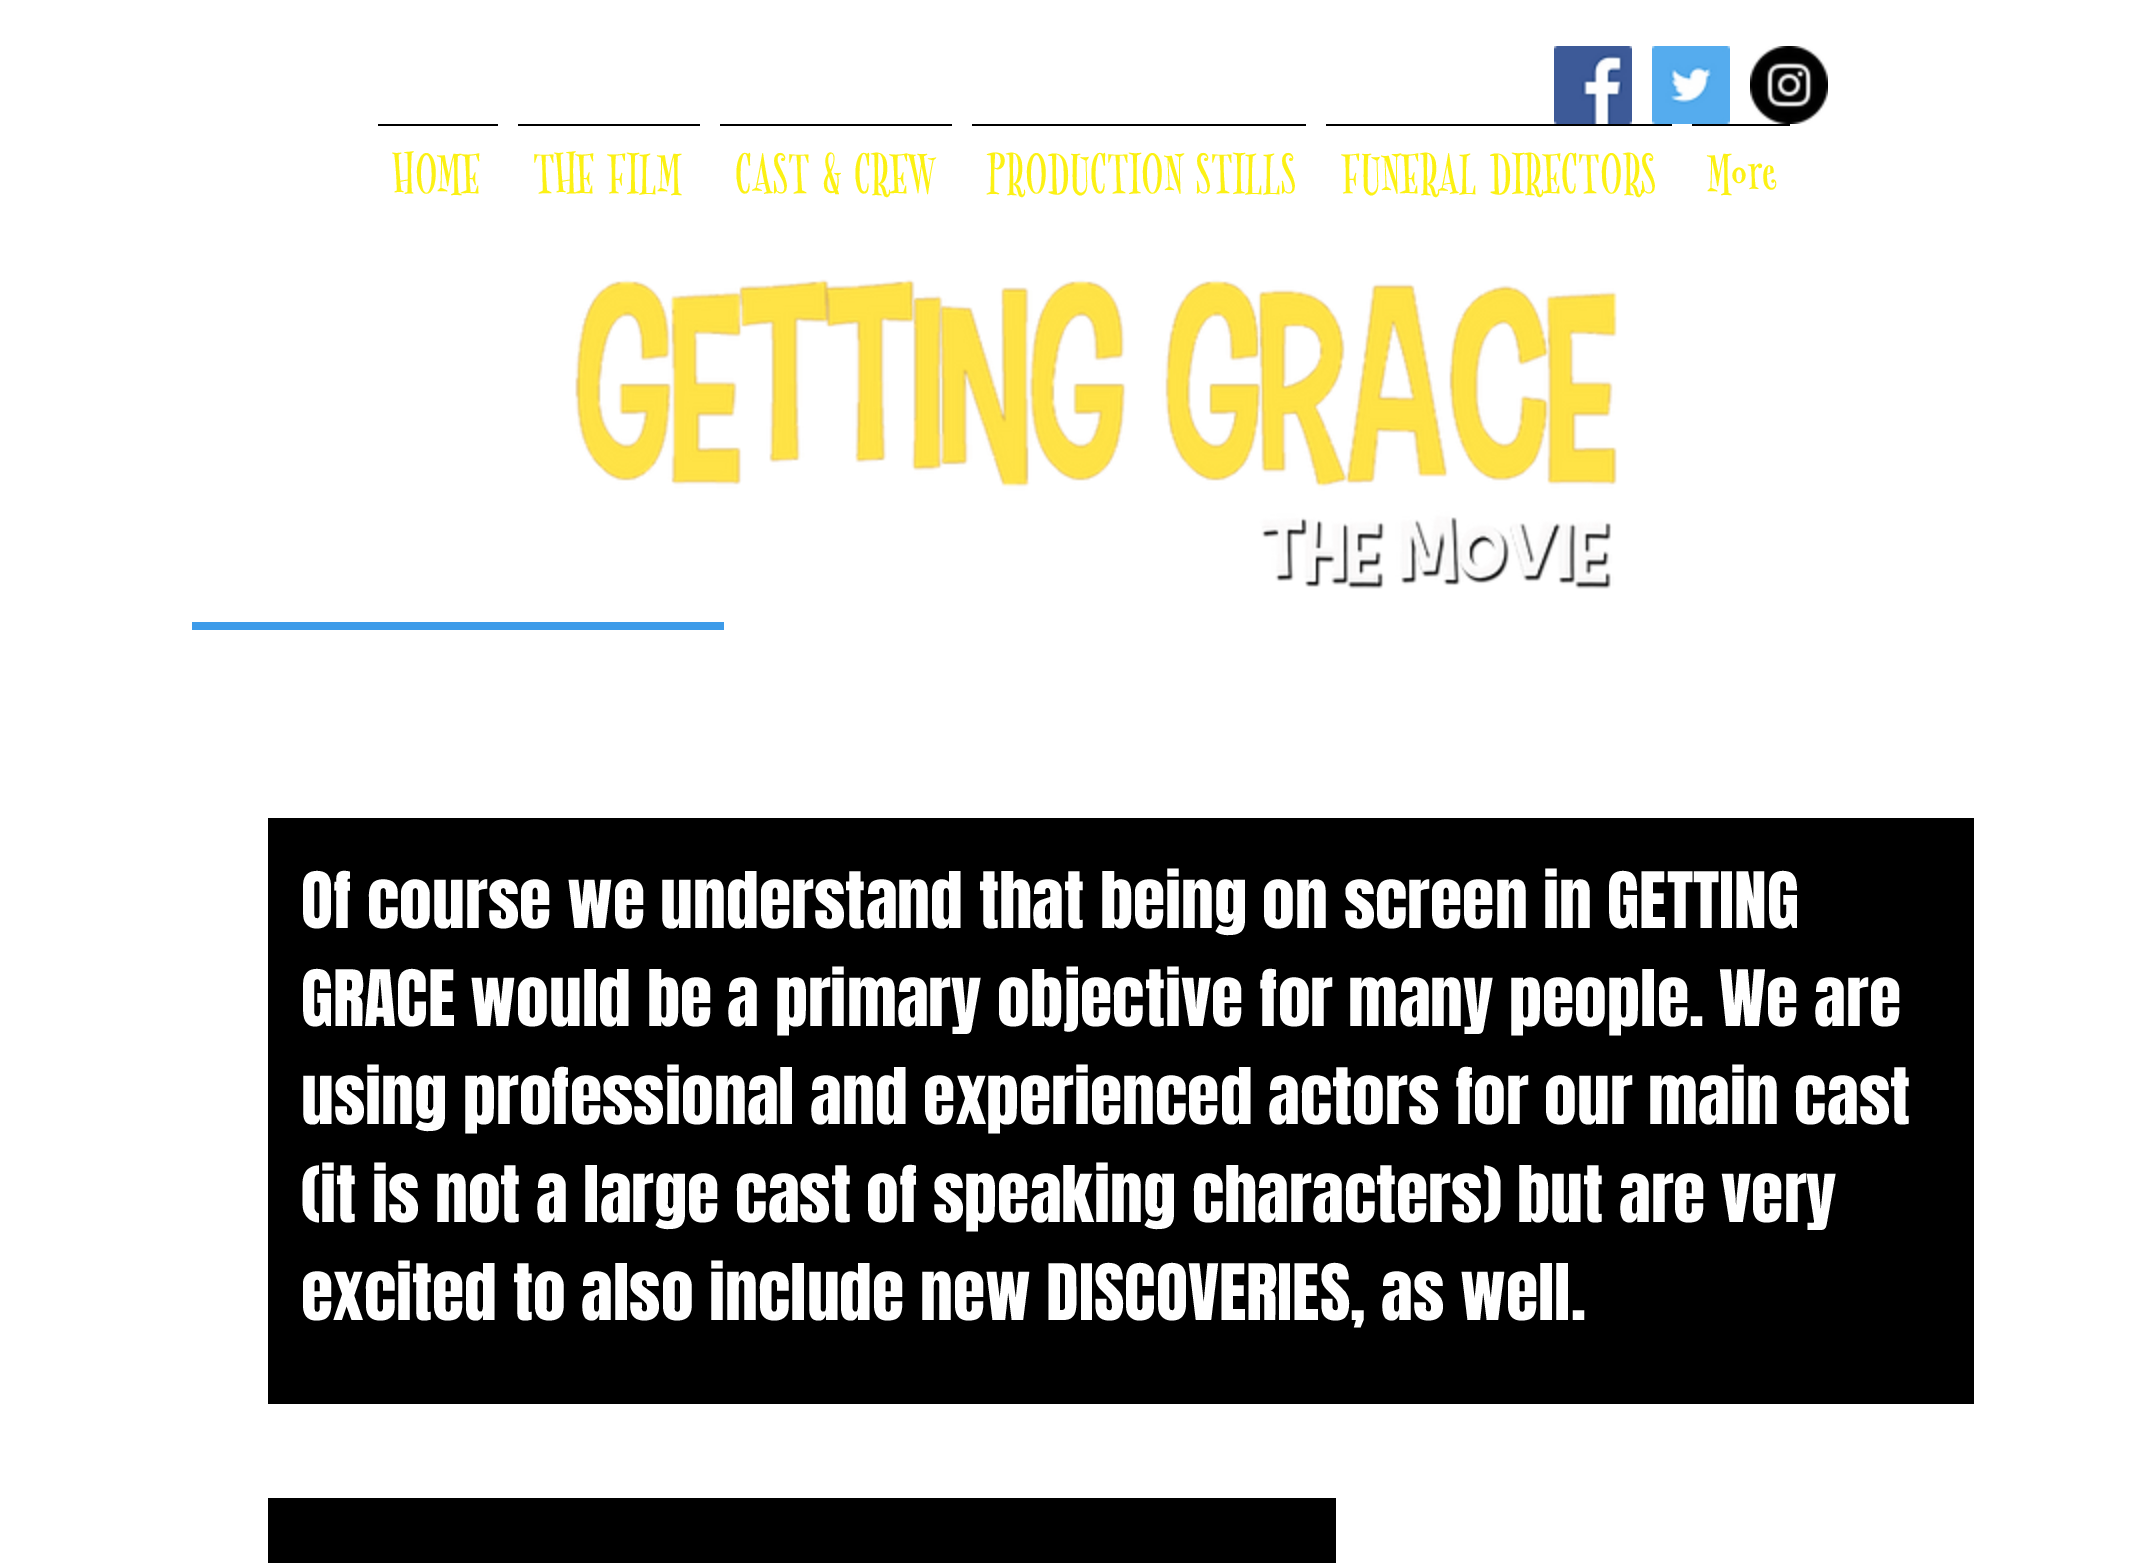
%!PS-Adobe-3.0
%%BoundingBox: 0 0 2154 1563
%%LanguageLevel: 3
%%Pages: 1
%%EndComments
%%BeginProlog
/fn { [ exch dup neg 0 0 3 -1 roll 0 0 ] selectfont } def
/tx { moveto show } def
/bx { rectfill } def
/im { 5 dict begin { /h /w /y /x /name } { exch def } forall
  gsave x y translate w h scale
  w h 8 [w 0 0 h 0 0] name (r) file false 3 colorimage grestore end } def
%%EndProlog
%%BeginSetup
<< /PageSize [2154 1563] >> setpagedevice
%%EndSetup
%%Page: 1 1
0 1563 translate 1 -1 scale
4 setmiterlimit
1 setgray
0 0 2154 1563 bx
(image0.raw) 1554 46 78 78 im
(image1.raw) 1652 46 78 78 im
(image2.raw) 1750 46 78 78 im
0 setgray
378 124 120 2 bx
/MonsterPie-Regular 52 fn
0.988 0.945 0.078 setrgbcolor
(HOME) 393 190 tx
0 setgray
518 124 182 2 bx
0.988 0.945 0.078 setrgbcolor
(THE FILM) 533 190 tx
0 setgray
720 124 232 2 bx
0.988 0.945 0.078 setrgbcolor
(CAST & CREW) 735 190 tx
0 setgray
972 124 334 2 bx
0.988 0.945 0.078 setrgbcolor
(PRODUCTION STILLS) 987 190 tx
0 setgray
1326 124 346 2 bx
0.988 0.945 0.078 setrgbcolor
(FUNERAL DIRECTORS) 1341 190 tx
0 setgray
1692 124 98 2 bx
0.988 0.945 0.078 setrgbcolor
(More) 1707 190 tx
(image3.raw) 575 279 1042 310 im
0.239 0.608 0.914 setrgbcolor
192 622 532 8 bx
0 setgray
268 818 1706 586 bx
/Anton-Regular 66 fn
1 setgray
(Of course we understand that being on screen in GETTING) 301 928 tx
(GRACE would be a primary objective for many people. We are) 301 1026 tx
(using professional and experienced actors for our main cast) 301 1124 tx
(\(it is not a large cast of speaking characters\) but are very) 301 1222 tx
(excited to also include new DISCOVERIES, as well.) 301 1320 tx
0 setgray
268 1498 1068 65 bx
showpage
%%EOF
